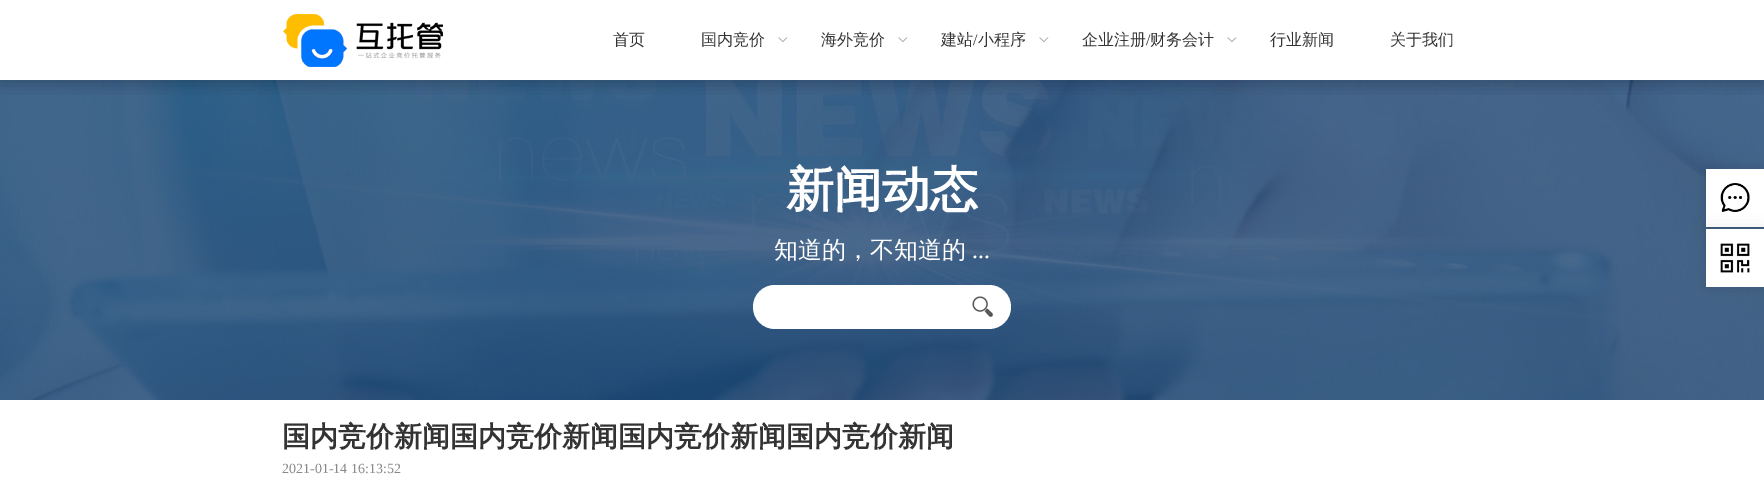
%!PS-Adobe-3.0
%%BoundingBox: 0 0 1764 483
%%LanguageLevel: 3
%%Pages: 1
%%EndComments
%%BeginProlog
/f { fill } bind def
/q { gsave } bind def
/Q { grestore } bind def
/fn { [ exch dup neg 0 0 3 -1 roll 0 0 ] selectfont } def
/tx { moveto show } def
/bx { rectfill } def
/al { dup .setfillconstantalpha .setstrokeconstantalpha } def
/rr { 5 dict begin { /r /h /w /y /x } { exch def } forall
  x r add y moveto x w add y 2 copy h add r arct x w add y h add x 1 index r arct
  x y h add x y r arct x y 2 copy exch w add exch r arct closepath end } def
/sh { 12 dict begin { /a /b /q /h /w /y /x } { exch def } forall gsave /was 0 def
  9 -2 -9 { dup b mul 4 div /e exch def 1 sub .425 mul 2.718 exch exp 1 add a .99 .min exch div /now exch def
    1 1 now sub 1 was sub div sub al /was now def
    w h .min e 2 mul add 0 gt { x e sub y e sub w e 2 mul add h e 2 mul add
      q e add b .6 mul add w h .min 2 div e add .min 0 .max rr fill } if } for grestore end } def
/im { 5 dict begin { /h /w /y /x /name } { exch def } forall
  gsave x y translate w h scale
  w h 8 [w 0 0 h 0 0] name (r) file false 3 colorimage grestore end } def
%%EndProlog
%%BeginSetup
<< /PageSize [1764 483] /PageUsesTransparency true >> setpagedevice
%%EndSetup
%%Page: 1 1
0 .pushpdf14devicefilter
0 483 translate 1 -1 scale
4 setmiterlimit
1 setgray
0 0 1764 483 bx
(image2.raw) 0 80 1764 320 im
q
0 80 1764 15 rectclip
0 setgray
0 5 1764 80 0 7.5 0.2 sh
Q
(image0.raw) 283 14 160 53 im
/WenQuanYiZenHei-Medium 16 fn
0.2 setgray
(首页) 613 45 tx
(国内竞价) 701 45 tx
(image1.raw) 778 37 10 5 im
(海外竞价) 821 45 tx
(image1.raw) 898 37 10 5 im
(建站) 941 45 tx
/LiberationSerif-Regular 16 fn
(/) 973 45 tx
/WenQuanYiZenHei-Medium 16 fn
(小程序) 978 45 tx
(image1.raw) 1039 37 10 5 im
(企业注册) 1082 45 tx
/LiberationSerif-Regular 16 fn
(/) 1146 45 tx
/WenQuanYiZenHei-Medium 16 fn
(财务会计) 1150 45 tx
(image1.raw) 1227 37 10 5 im
(行业新闻) 1270 45 tx
(关于我们) 1390 45 tx
/WenQuanYiZenHei-Bold 48 fn
1 setgray
(新闻动态) 786 206 tx
/WenQuanYiZenHei-Medium 24 fn
(知道的，不知道的) 774 258 tx
/LiberationSerif-Regular 24 fn
(...) 972 258 tx
753 285 258 44 22 rr f
(image3.raw) 972 296 22 22 im
0 setgray
1706 169 58 58 0 7.5 0.1 sh
1 setgray
1706 169 58 58 bx
(image4.raw) 1720 183 30 29 im
0 setgray
1706 229 58 58 0 7.5 0.1 sh
1 setgray
1706 229 58 58 bx
(image5.raw) 1720 243 30 30 im
/WenQuanYiZenHei-Bold 28 fn
0.2 setgray
(国内竞价新闻国内竞价新闻国内竞价新闻国内竞价新闻) 282 446 tx
/LiberationSerif-Regular 14 fn
0.533 setgray
(2021-01-14 16:13:52) 282 473 tx
.poppdf14devicefilter showpage
%%EOF
